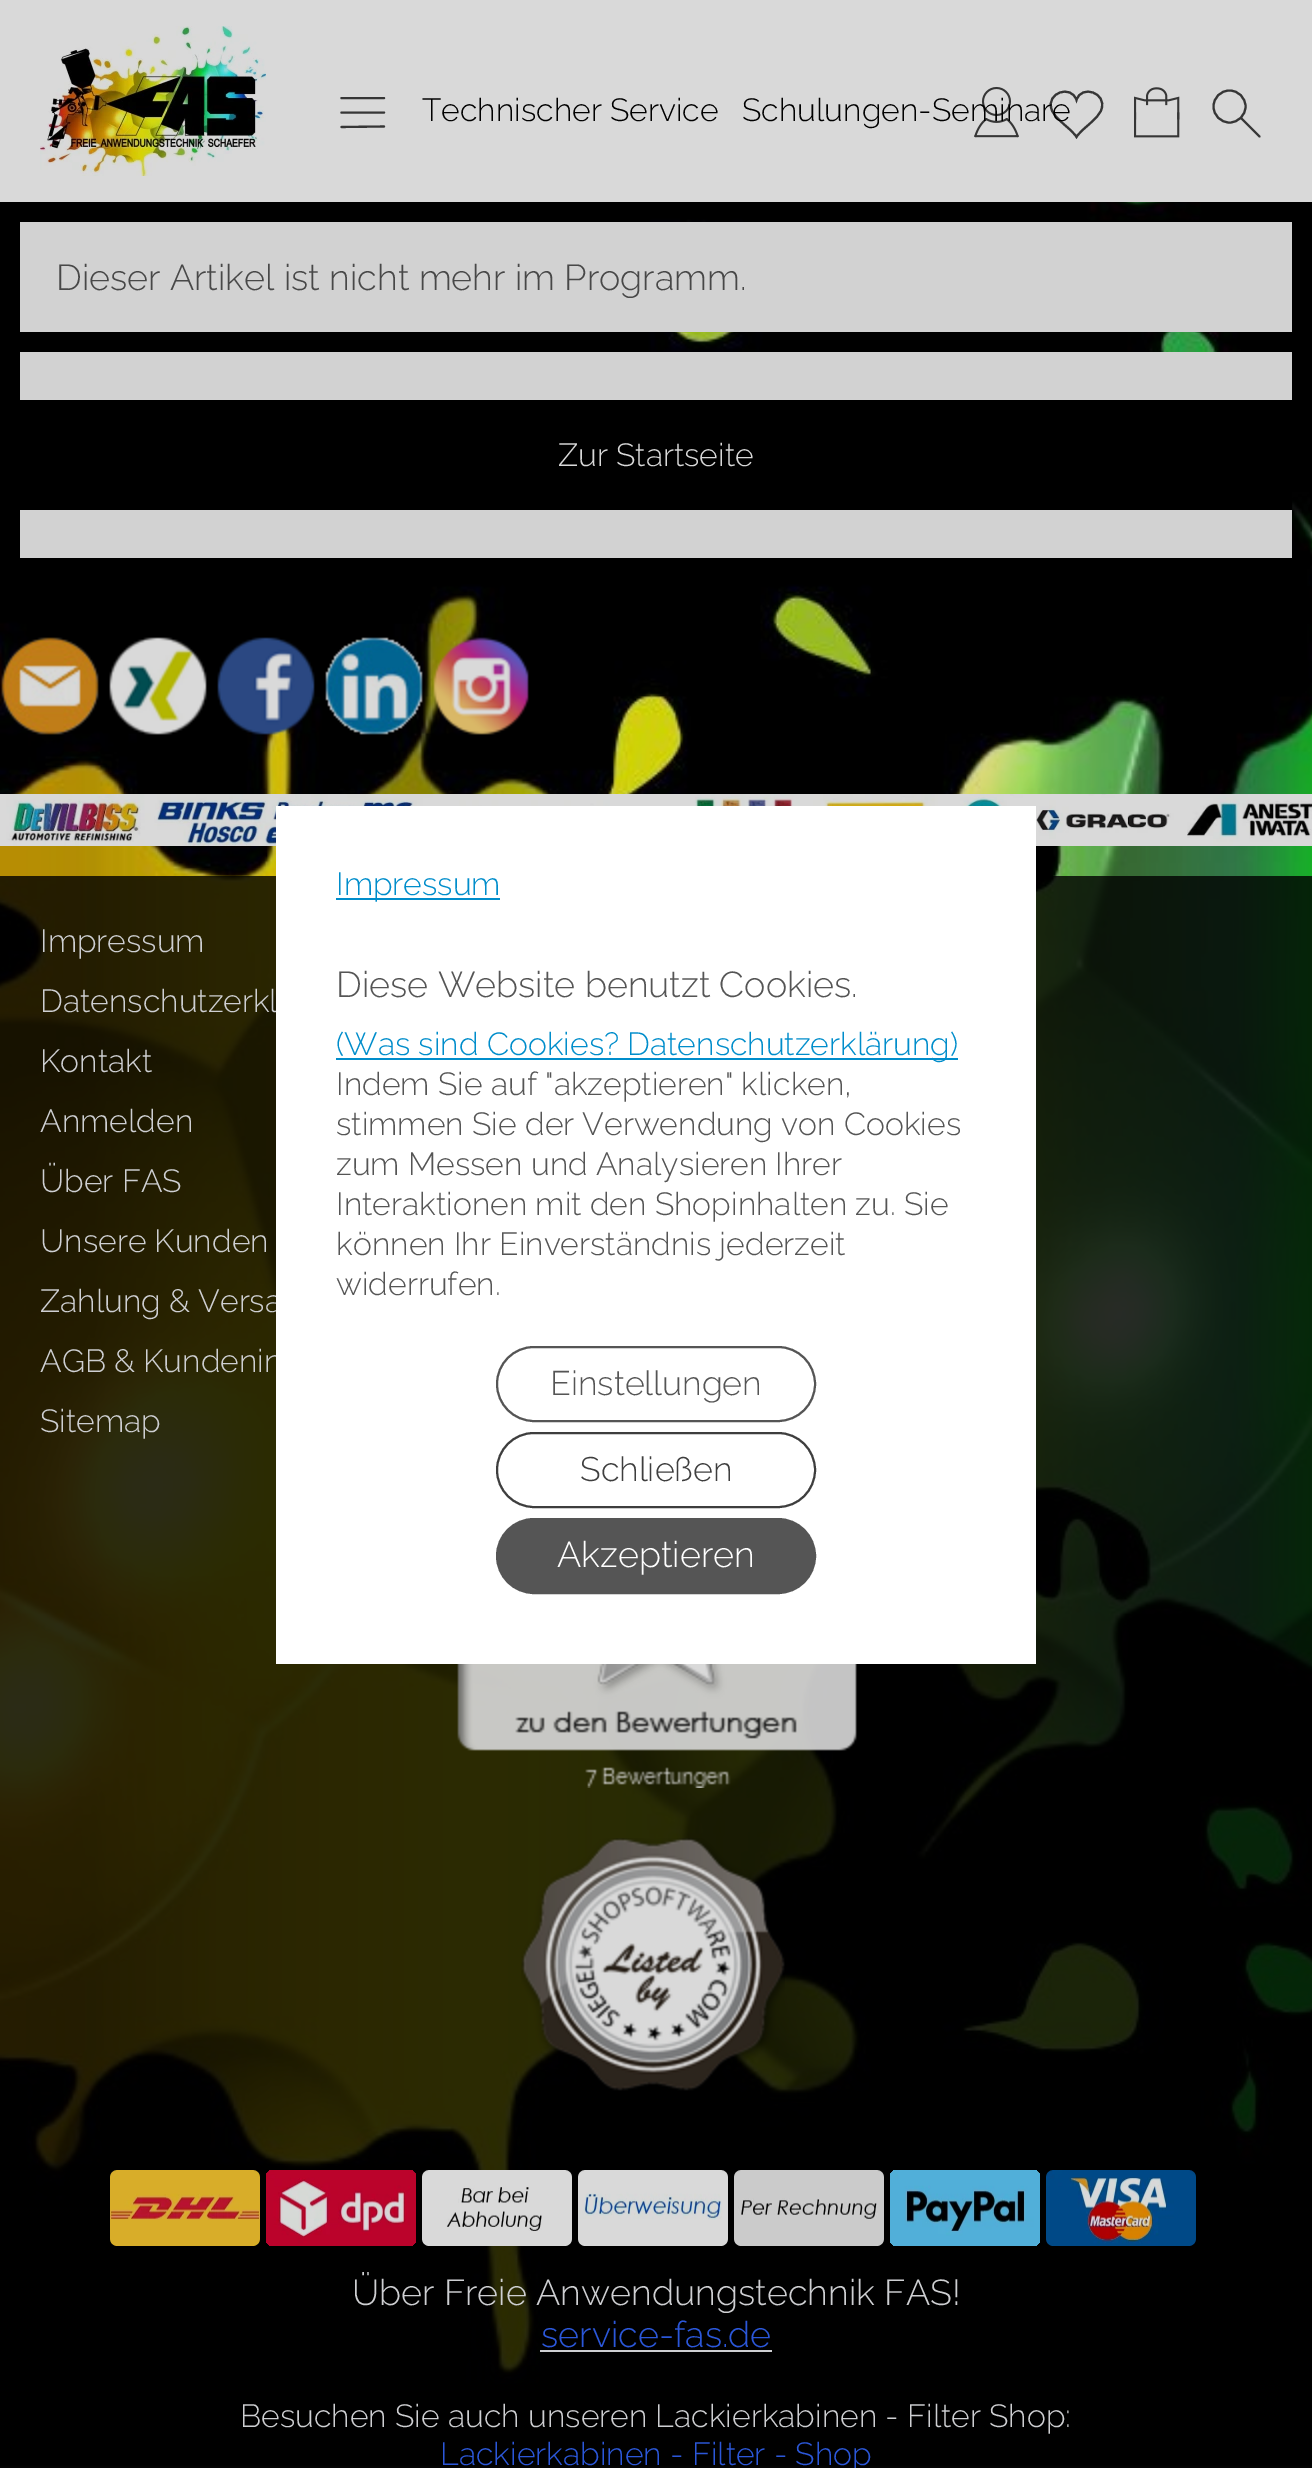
%!PS-Adobe-3.0
%%BoundingBox: 0 0 1312 2468
%%LanguageLevel: 3
%%Pages: 1
%%EndComments
%%BeginProlog
/m { moveto } bind def
/l { lineto } bind def
/c { curveto } bind def
/h { closepath } bind def
/f { fill } bind def
/S { stroke } bind def
/q { gsave } bind def
/Q { grestore } bind def
/w { setlinewidth } bind def
/fn { [ exch dup neg 0 0 3 -1 roll 0 0 ] selectfont } def
/tx { moveto show } def
/bx { rectfill } def
/al { dup .setfillconstantalpha .setstrokeconstantalpha } def
/ci { newpath 0 360 arc closepath } def
/rr { 5 dict begin { /r /h /w /y /x } { exch def } forall
  x r add y moveto x w add y 2 copy h add r arct x w add y h add x 1 index r arct
  x y h add x y r arct x y 2 copy exch w add exch r arct closepath end } def
/im { 5 dict begin { /h /w /y /x /name } { exch def } forall
  gsave x y translate w h scale
  w h 8 [w 0 0 h 0 0] name (r) file false 3 colorimage grestore end } def
%%EndProlog
%%BeginSetup
<< /PageSize [1312 2468] /PageUsesTransparency true >> setpagedevice
%%EndSetup
%%Page: 1 1
0 .pushpdf14devicefilter
0 2468 translate 1 -1 scale
4 setmiterlimit
1 setgray
0 0 1312 2468 bx
(image0.raw) 0 202 1312 2266 im
0.851 setgray
0 0 1312 202 bx
(image1.raw) 40 26 226 150 im
0.212 setgray
2.1 w
1 setlinecap
341.5 127 m 384 126.5 l 341.5 112.5 m 384 112.5 l 341.5 98 m 384 98 l S
/Raleway-Light 32 fn
0 setgray
(Technischer Service) 422 121 tx
(image2.raw) 974 86 45 52 im
0.212 setgray
0 setlinecap
1076.5 137 m 1070 127 1055 120 1051.5 109 c 1046 93 1071 84 1076.5 100 c 1081.5 84 1107 93 1101.5 109 c 1098 120 1083 127 1076.5 137 c h S
0 setgray
(Schulungen-Seminare) 742 121 tx
(image3.raw) 1134 87 46 51 im
0.212 setgray
1229.5 106.5 16 ci S
1 setlinecap
1241 118 m 1259.5 136.5 l S
0.824 setgray
20 222 1272 110 bx
/Raleway-Light 36 fn
0.282 setgray
(Dieser Artikel ist nicht mehr im Programm.) 56 290 tx
0.824 setgray
20 352 1272 206 bx
0 setgray
20 400 1272 110 bx
/Raleway-Light 32 fn
0.851 setgray
(Zur Startseite) 558 466 tx
(image4.raw) 1 637 98 98 im
(image5.raw) 109 637 98 98 im
(image6.raw) 217 637 98 98 im
(image7.raw) 325 637 98 98 im
(image8.raw) 433 637 96 98 im
(image9.raw) 0 794 1312 52 im
0.8 al
0 setgray
0 876 1312 1592 bx
1 al
0.808 0.812 0.824 setrgbcolor
(Impressum) 40 952 tx
(Datenschutzerkl) 40 1012 tx
(Kontakt) 40 1072 tx
(Anmelden) 40 1132 tx
(Über FAS) 40 1192 tx
(Unsere Kunden) 40 1252 tx
(Zahlung & Versa) 40 1312 tx
(AGB & Kundenin) 40 1372 tx
(Sitemap) 40 1432 tx
(image10.raw) 457 1664 400 124 im
(image11.raw) 521 1838 264 253 im
(image12.raw) 110 2170 150 76 im
(image13.raw) 266 2170 150 76 im
(image14.raw) 422 2170 150 76 im
(image15.raw) 578 2170 150 76 im
(image16.raw) 734 2170 150 76 im
(image17.raw) 890 2170 150 76 im
(image18.raw) 1046 2170 150 76 im
/Raleway-Light 36 fn
(Über Freie Anwendungstechnik FAS!) 352 2305 tx
0.169 0.341 0.851 setrgbcolor
(service-fas.de) 541 2347 tx
0.808 0.812 0.824 setrgbcolor
540 2350 232 2 bx
/Raleway-Light 32 fn
(Besuchen Sie auch unseren Lackierkabinen - Filter Shop:) 240 2427 tx
0.169 0.341 0.851 setrgbcolor
(Lackierkabinen - Filter - Shop) 440 2465 tx
1 setgray
276 806 760 858 bx
0 0.553 0.796 setrgbcolor
336 898 164 2 bx
(Impressum) 336 895 tx
/Raleway-Light 36 fn
0.333 setgray
(Diese Website benutzt Cookies.) 336 997 tx
0 0.553 0.796 setrgbcolor
336 1058 622 2 bx
/Raleway-Light 32 fn
(\(Was sind Cookies? Datenschutzerklärung\)) 336 1055 tx
0.333 setgray
(Indem Sie auf "akzeptieren" klicken,) 336 1095 tx
(stimmen Sie der Verwendung von Cookies) 336 1135 tx
(zum Messen und Analysieren Ihrer) 336 1175 tx
(Interaktionen mit den Shopinhalten zu. Sie) 336 1215 tx
(können Ihr Einverständnis jederzeit) 336 1255 tx
(widerrufen.) 336 1295 tx
2 w
0 setlinecap
497 1347 318 74 37 rr S
/Raleway-Light 34 fn
(Einstellungen) 550 1395 tx
0.243 setgray
497 1433 318 74 37 rr S
(Schließen) 580 1481 tx
0.333 setgray
497 1519 318 74 37 rr q f Q
S
/Raleway-Light 36 fn
1 setgray
(Akzeptieren) 557 1567 tx
.poppdf14devicefilter showpage
%%EOF
